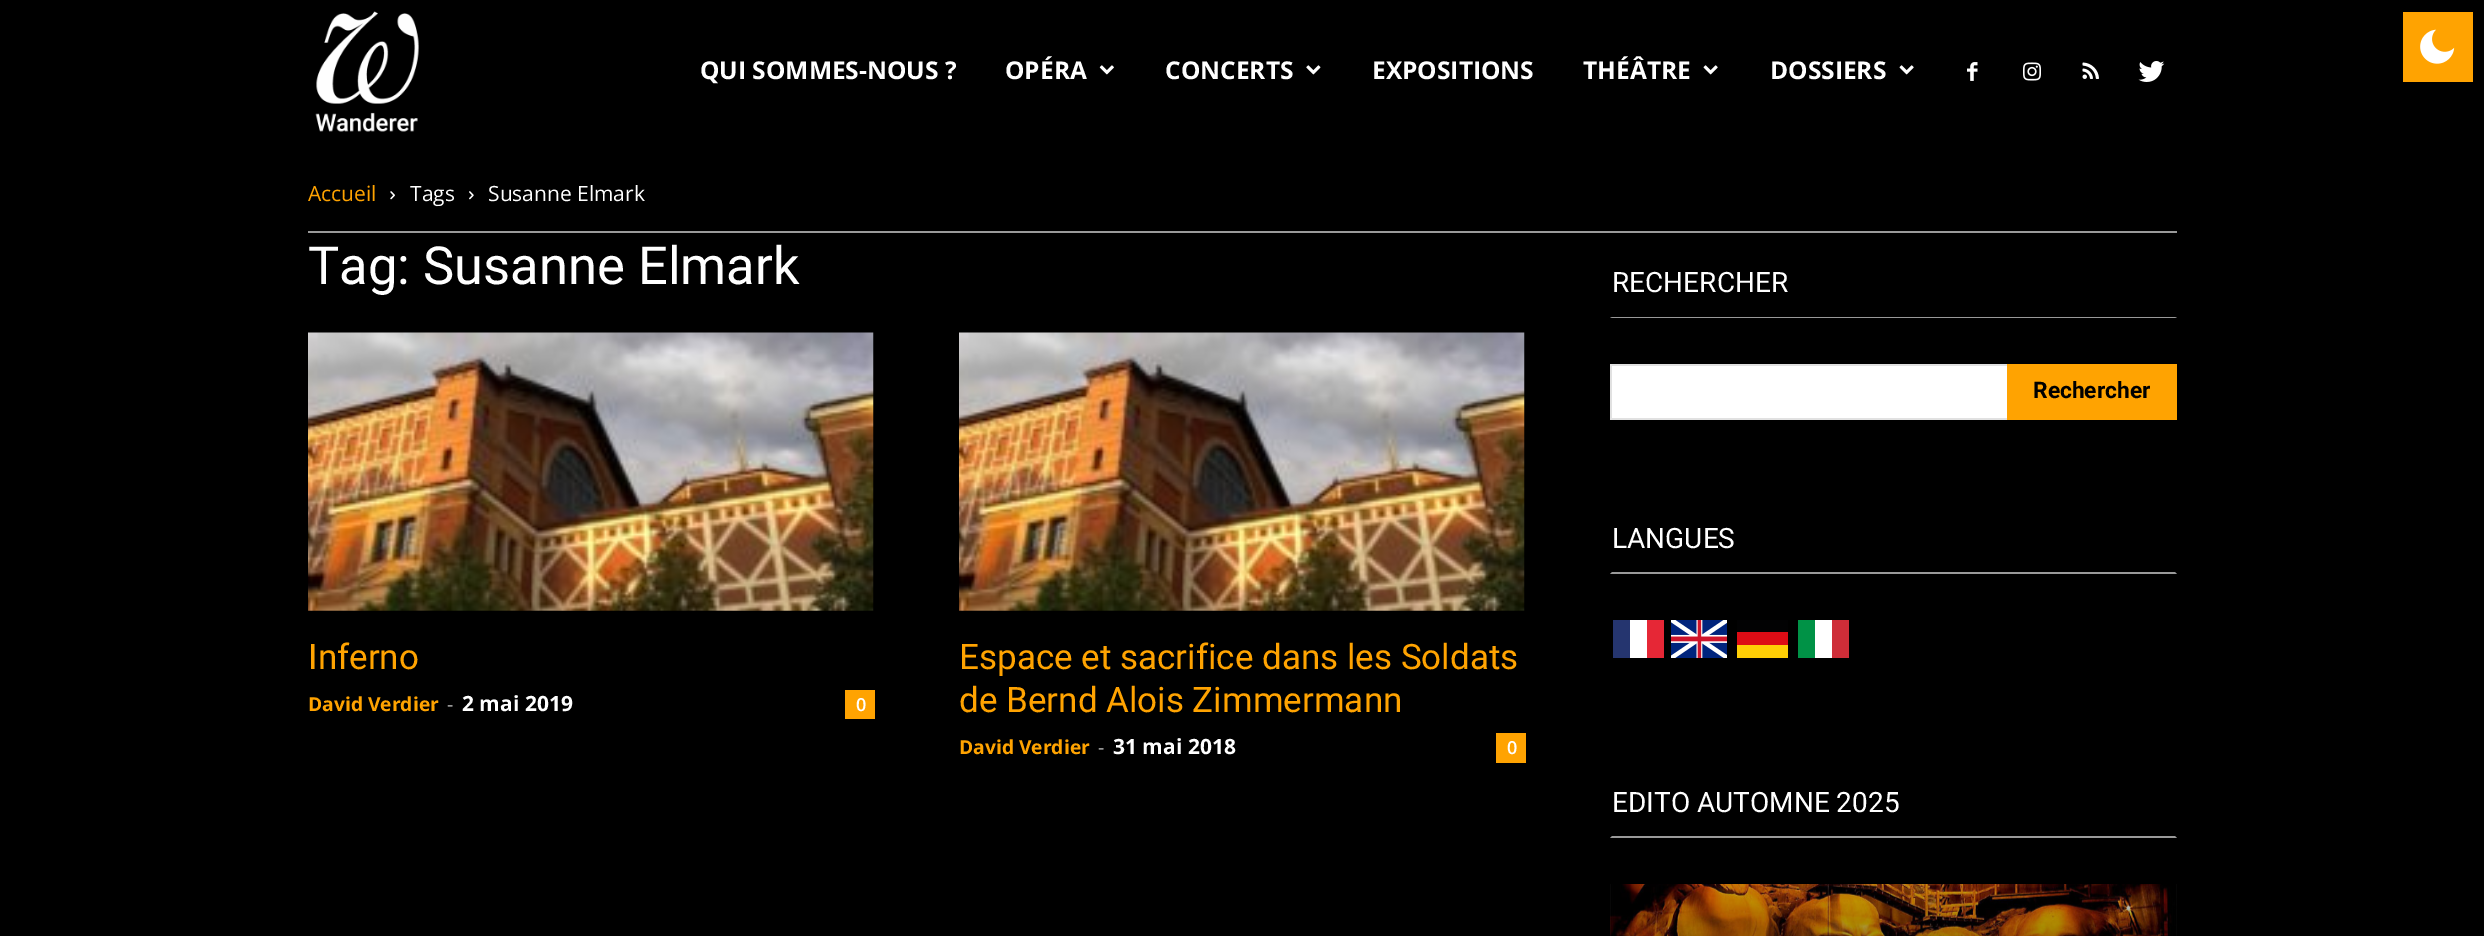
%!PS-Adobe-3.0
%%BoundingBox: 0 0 2484 936
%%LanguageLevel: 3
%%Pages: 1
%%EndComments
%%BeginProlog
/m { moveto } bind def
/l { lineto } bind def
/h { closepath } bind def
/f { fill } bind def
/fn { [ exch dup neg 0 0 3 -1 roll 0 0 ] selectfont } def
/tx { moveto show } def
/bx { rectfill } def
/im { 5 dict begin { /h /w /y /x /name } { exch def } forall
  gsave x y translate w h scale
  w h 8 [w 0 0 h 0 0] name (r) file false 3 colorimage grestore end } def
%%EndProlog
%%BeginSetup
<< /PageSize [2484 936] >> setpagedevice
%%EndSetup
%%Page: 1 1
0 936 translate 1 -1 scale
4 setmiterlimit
0 setgray
0 0 2484 936 bx
1 0.639 0.004 setrgbcolor
2403 12 70 70 bx
(image0.raw) 2420 29 35 35 im
(image1.raw) 315 11 104 121 im
/OpenSans-Bold 24.5 fn
1 setgray
(QUI SOMMES-NOUS ?) 700 79 tx
(OPÉRA) 1005 79 tx
(image2.raw) 1099 65 15 10 im
(CONCERTS) 1165 79 tx
(image3.raw) 1306 65 15 10 im
(EXPOSITIONS) 1372 79 tx
(THÉÂTRE) 1583 79 tx
(image4.raw) 1703 65 15 10 im
(DOSSIERS) 1770 79 tx
(image4.raw) 1899 65 15 10 im
(image5.raw) 1967 62 11 19 im
(image6.raw) 2023 62 18 19 im
(image7.raw) 2082 62 17 17 im
(image8.raw) 2138 61 27 21 im
0.6 setgray
308 231 1869 2 bx
/OpenSans-Regular 21 fn
1 0.639 0.004 setrgbcolor
(Accueil) 308 201 tx
(image9.raw) 390 191 5 9 im
1 setgray
(Tags) 410 201 tx
(image10.raw) 469 191 5 9 im
(Susanne Elmark) 488 201 tx
/Roboto-Regular 52.5 fn
(Tag: Susanne Elmark) 308 284 tx
(image11.raw) 308 332 566 279 im
/Roboto-Regular 35 fn
1 0.639 0.004 setrgbcolor
(Inferno) 308 669 tx
/OpenSans-Bold 19.25 fn
(David Verdier) 308 711 tx
/OpenSans-Regular 19.25 fn
0.8 setgray
(-) 447 711 tx
/OpenSans-Bold 21 fn
1 setgray
(2 mai 2019) 462 711 tx
1 0.639 0.004 setrgbcolor
845 690 30 29 bx
/OpenSans-SemiBold 18 fn
1 setgray
(0) 856 711 tx
(image11.raw) 959 332 566 279 im
/Roboto-Regular 35 fn
1 0.639 0.004 setrgbcolor
(Espace et sacrifice dans les Soldats) 959 669 tx
(de Bernd Alois Zimmermann) 959 712 tx
/OpenSans-Bold 19.25 fn
(David Verdier) 959 754 tx
/OpenSans-Regular 19.25 fn
0.8 setgray
(-) 1098 754 tx
/OpenSans-Bold 21 fn
1 setgray
(31 mai 2018) 1113 754 tx
1 0.639 0.004 setrgbcolor
1496 733 30 30 bx
/OpenSans-SemiBold 18 fn
1 setgray
(0) 1507 754 tx
0.6 setgray
2177 318 m 1610 318 l 1612 317 l 2175 317 l h f
/Roboto-Regular 28 fn
1 setgray
(RECHERCHER) 1612 292 tx
1612 366 395 52 bx
0.882 setgray
1610 364 397 2 bx
1610 418 397 2 bx
1610 364 2 56 bx
1 0.639 0.004 setrgbcolor
2007 364 170 56 bx
/Roboto-Bold 22.75 fn
0 setgray
(Rechercher) 2033 398 tx
0.6 setgray
2177 574 m 1610 574 l 1612 572 l 2175 572 l h f
/Roboto-Regular 28 fn
1 setgray
(LANGUES) 1612 548 tx
0.145 0.208 0.435 setrgbcolor
1613 620 17 38 bx
1 setgray
1630 620 17 38 bx
0.902 0.153 0.212 setrgbcolor
1647 620 17 38 bx
(image12.raw) 1671 620 56 38 im
0.008 0.008 0.012 setrgbcolor
1737 620 51 12 bx
0.867 0.047 0.082 setrgbcolor
1737 632 51 13 bx
1 0.808 0.02 setrgbcolor
1737 645 51 13 bx
0 0.573 0.275 setrgbcolor
1798 620 17 38 bx
1 setgray
1815 620 17 38 bx
0.808 0.176 0.22 setrgbcolor
1832 620 17 38 bx
0.6 setgray
2177 838 m 1610 838 l 1612 836 l 2175 836 l h f
1 setgray
(EDITO AUTOMNE 2025) 1612 812 tx
(image13.raw) 1610 884 567 52 im
showpage
%%EOF
